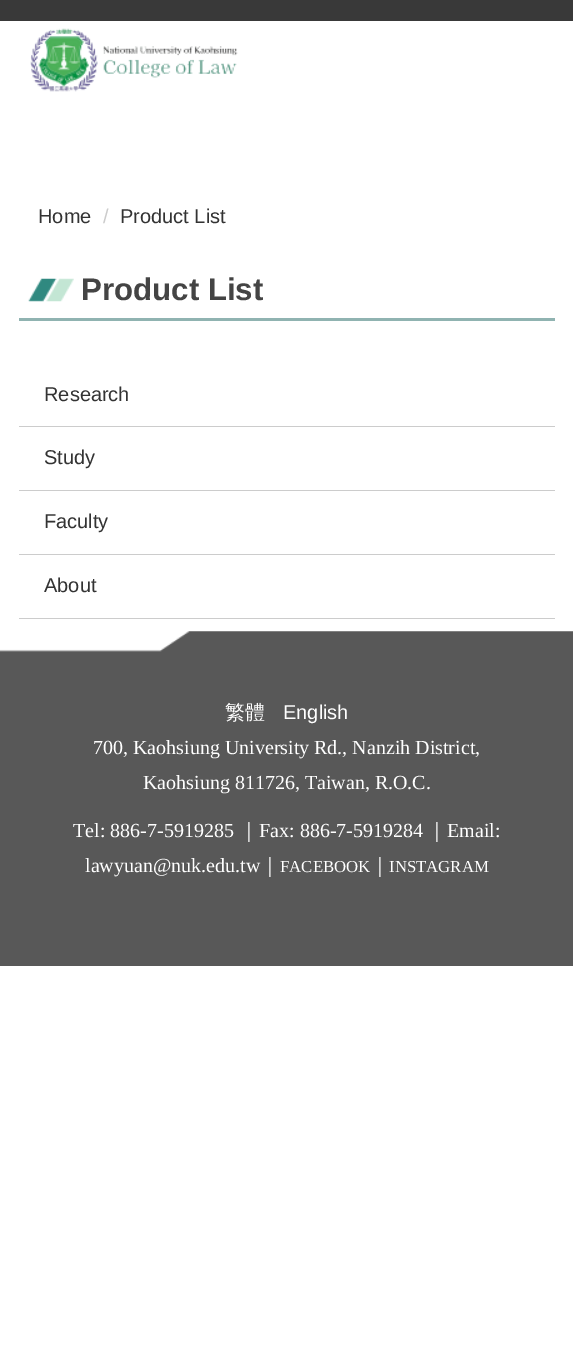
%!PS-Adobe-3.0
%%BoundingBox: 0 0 573 1371
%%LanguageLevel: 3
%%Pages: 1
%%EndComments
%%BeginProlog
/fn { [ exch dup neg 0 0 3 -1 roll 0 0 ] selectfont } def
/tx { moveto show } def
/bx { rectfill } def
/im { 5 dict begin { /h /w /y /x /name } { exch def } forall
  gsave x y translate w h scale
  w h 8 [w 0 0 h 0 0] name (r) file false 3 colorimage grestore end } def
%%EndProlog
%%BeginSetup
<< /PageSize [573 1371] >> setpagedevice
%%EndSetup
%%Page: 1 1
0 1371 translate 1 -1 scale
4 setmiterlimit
1 setgray
0 0 573 1371 bx
0.224 setgray
0 0 573 21 bx
(image0.raw) 30 28 208 64 im
/LiberationSans-Regular 20 fn
0.2 setgray
(Home) 38 223 tx
0.8 setgray
(/) 103 223 tx
0.2 setgray
(Product List) 120 223 tx
0.565 0.702 0.694 setrgbcolor
19 318 536 3 bx
(image1.raw) 28 278 46 24 im
/LiberationSans-Bold 31.25 fn
0.267 setgray
(Product List) 81 300 tx
0.8 setgray
19 426 536 1 bx
/LiberationSans-Regular 20 fn
0.2 setgray
(Research) 44 401 tx
0.8 setgray
19 490 536 1 bx
0.2 setgray
(Study) 44 464 tx
0.8 setgray
19 554 536 1 bx
0.2 setgray
(Faculty) 44 528 tx
0.8 setgray
19 618 536 1 bx
0.2 setgray
(About) 44 592 tx
0.345 setgray
0 671 573 295 bx
(image2.raw) 0 631 573 40 im
/WenQuanYiZenHei-Medium 20 fn
1 setgray
(繁體) 225 719 tx
/LiberationSans-Regular 20 fn
(English) 283 719 tx
/LiberationSerif-Regular 20 fn
(700, Kaohsiung University Rd., Nanzih District,) 93 754 tx
(Kaohsiung 811726, Taiwan, R.O.C.) 143 789 tx
(Tel: 886-7-5919285) 73 837 tx
/WenQuanYiZenHei-Medium 20 fn
(｜) 239 837 tx
/LiberationSerif-Regular 20 fn
(Fax: 886-7-5919284) 259 837 tx
/WenQuanYiZenHei-Medium 20 fn
(｜) 427 837 tx
/LiberationSerif-Regular 20 fn
(Email:) 447 837 tx
(lawyuan@nuk.edu.tw) 85 872 tx
/WenQuanYiZenHei-Medium 20 fn
(｜) 260 872 tx
/LiberationSerif-Regular 16.75 fn
(FACEBOOK) 280 872 tx
/WenQuanYiZenHei-Medium 20 fn
(｜) 370 872 tx
/LiberationSerif-Regular 16.75 fn
(INSTAGRAM) 389 872 tx
showpage
%%EOF
